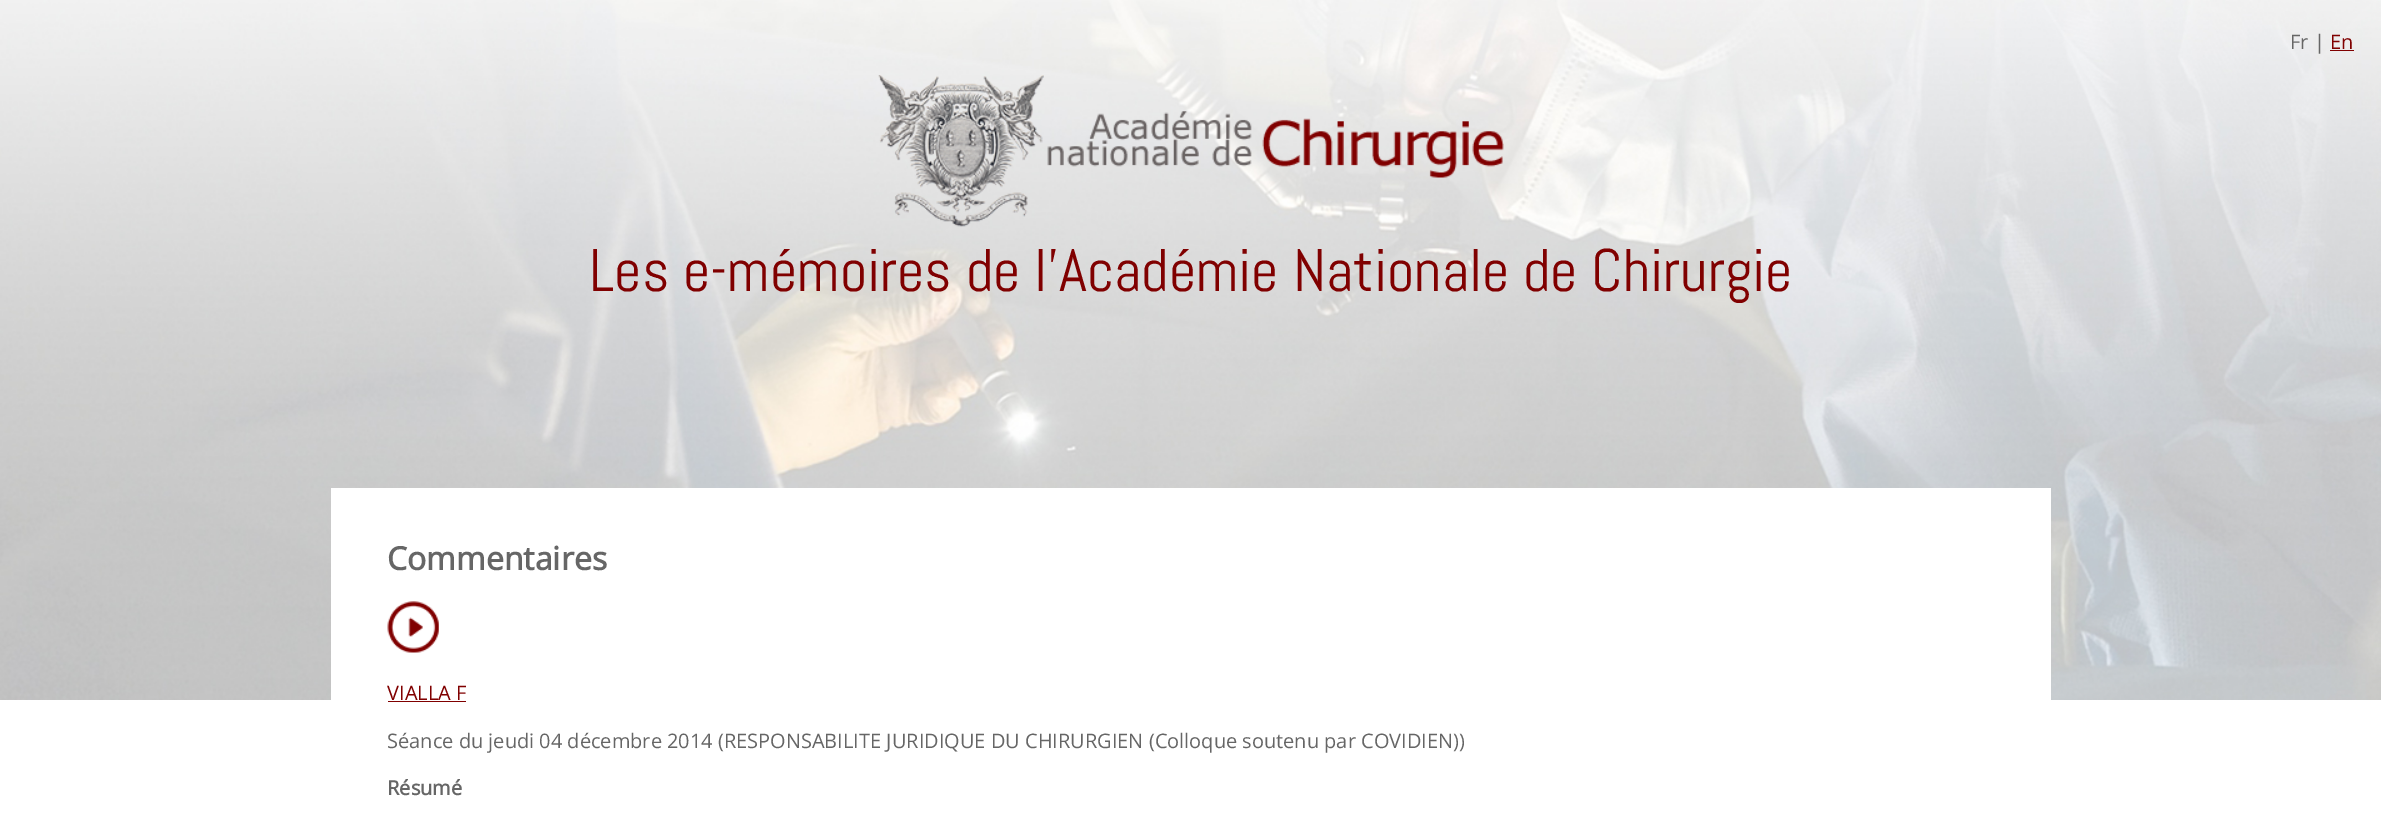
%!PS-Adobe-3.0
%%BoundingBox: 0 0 2381 826
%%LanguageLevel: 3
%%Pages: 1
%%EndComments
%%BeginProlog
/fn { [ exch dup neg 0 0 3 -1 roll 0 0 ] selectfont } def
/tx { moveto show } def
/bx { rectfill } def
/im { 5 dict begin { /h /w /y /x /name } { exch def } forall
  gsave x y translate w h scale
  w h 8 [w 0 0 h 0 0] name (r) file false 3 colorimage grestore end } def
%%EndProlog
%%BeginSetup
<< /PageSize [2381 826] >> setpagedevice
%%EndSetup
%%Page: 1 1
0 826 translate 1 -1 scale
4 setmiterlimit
1 setgray
0 0 2381 826 bx
(image0.raw) 0 0 2381 700 im
/OpenSans-Regular 20 fn
0.4 setgray
(Fr |) 2290 49 tx
0.502 0 0 setrgbcolor
(En) 2330 49 tx
2330 50 24 1 bx
(image1.raw) 878 75 626 152 im
/Abel-Regular 60 fn
(Les e-mémoires de l'Académie Nationale de Chirurgie) 589 291 tx
1 setgray
331 488 1720 212 bx
/OpenSans-Bold 32 fn
0.4 setgray
(Commentaires) 387 570 tx
(image2.raw) 387 601 52 52 im
/OpenSans-Regular 20 fn
0.502 0 0 setrgbcolor
(VIALLA F) 387 700 tx
388 701 78 1 bx
0.4 setgray
(Séance du jeudi 04 décembre 2014 \(RESPONSABILITE JURIDIQUE DU CHIRURGIEN \(Colloque soutenu par COVIDIEN\)\)) 387 748 tx
/OpenSans-Bold 20 fn
(Résumé) 387 795 tx
showpage
%%EOF
